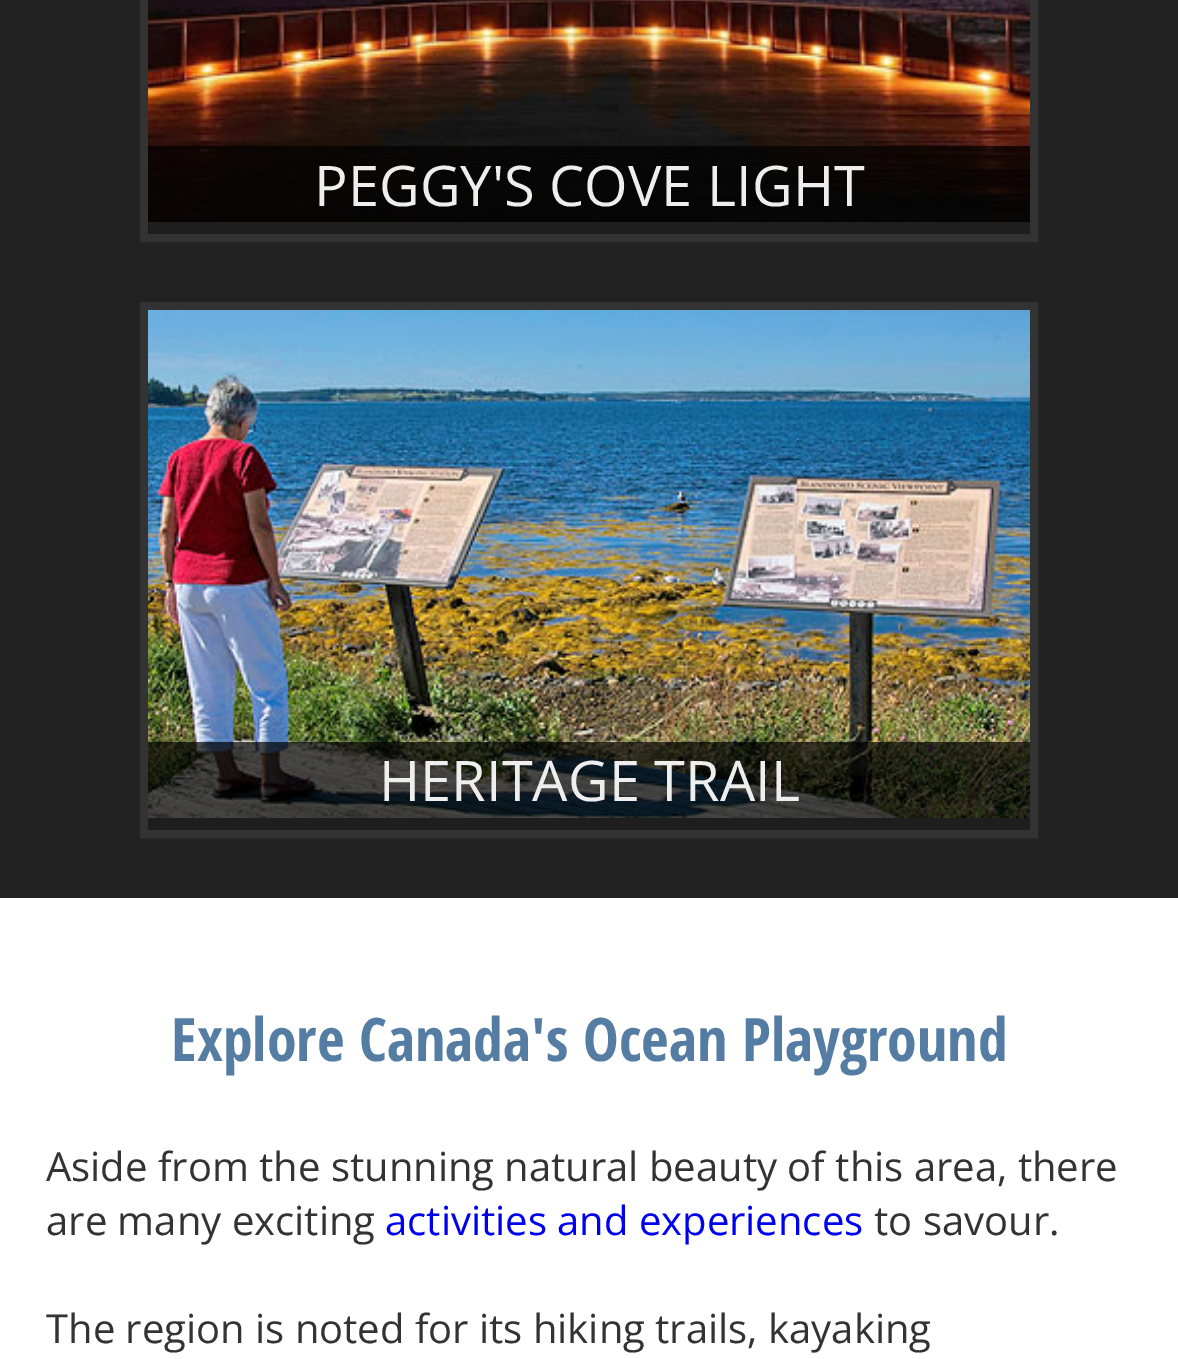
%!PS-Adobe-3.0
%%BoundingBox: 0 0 1178 1359
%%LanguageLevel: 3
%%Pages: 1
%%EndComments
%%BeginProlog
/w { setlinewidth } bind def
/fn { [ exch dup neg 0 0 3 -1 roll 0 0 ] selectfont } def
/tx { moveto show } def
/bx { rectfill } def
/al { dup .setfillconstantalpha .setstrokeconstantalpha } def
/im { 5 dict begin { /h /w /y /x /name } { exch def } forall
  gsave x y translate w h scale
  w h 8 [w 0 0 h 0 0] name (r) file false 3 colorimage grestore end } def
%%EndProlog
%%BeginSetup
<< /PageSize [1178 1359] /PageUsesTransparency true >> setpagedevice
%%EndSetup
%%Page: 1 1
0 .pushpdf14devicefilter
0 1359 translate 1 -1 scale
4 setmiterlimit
1 setgray
0 0 1178 1359 bx
0.133 setgray
0 0 1178 898 bx
0.4 setgray
148 222 882 12 bx
0.2 setgray
8 w
144 -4 890 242 rectstroke
(image0.raw) 148 0 882 222 im
0.7 al
0 setgray
148 146 882 88 bx
/OpenSans-Regular 56 fn
1 al
0.933 setgray
(PEGGY'S COVE LIGHT) 314 206 tx
0.4 setgray
148 818 882 12 bx
0.2 setgray
144 306 890 528 rectstroke
(image1.raw) 148 310 882 508 im
0.7 al
0 setgray
148 742 882 88 bx
1 al
0.933 setgray
(HERITAGE TRAIL) 379 801 tx
/OpenSansCondensed-Bold 60 fn
0.333 0.49 0.643 setrgbcolor
(Explore Canada's Ocean Playground) 171 1061 tx
/OpenSans-Regular 40 fn
0.2 setgray
(Aside from the stunning natural beauty of this area, there) 46 1181 tx
(are many exciting) 46 1235 tx
0 0 0.933 setrgbcolor
(activities and experiences) 385 1235 tx
0.2 setgray
(to savour.) 874 1235 tx
(The region is noted for its hiking trails, kayaking) 46 1343 tx
.poppdf14devicefilter showpage
%%EOF
